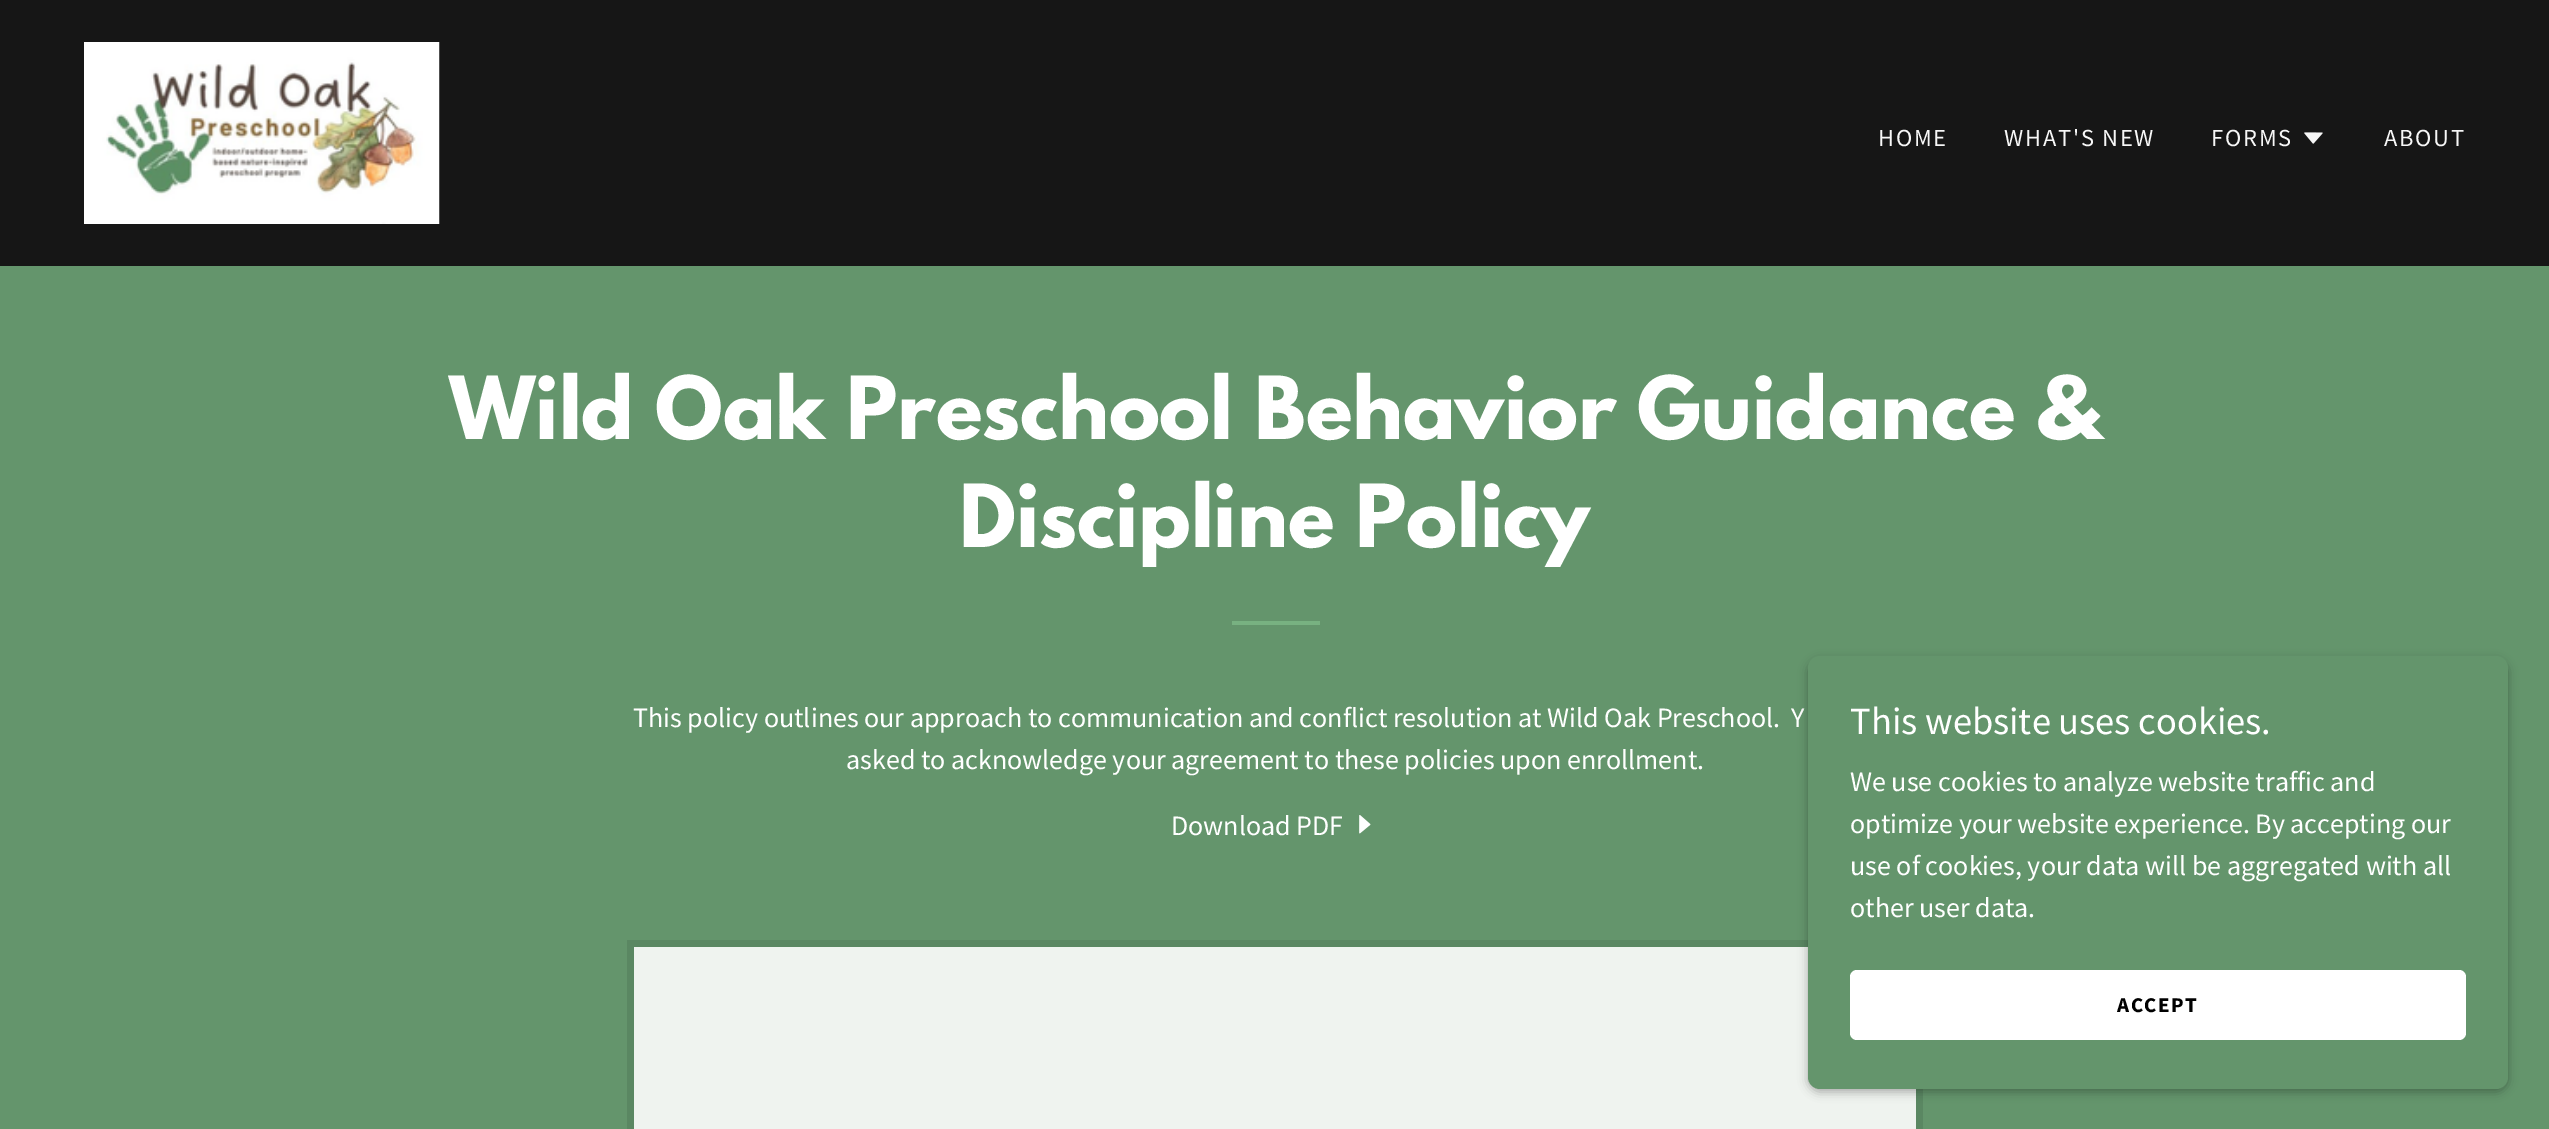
%!PS-Adobe-3.0
%%BoundingBox: 0 0 2549 1129
%%LanguageLevel: 3
%%Pages: 1
%%EndComments
%%BeginProlog
/m { moveto } bind def
/f { fill } bind def
/fn { [ exch dup neg 0 0 3 -1 roll 0 0 ] selectfont } def
/tx { moveto show } def
/bx { rectfill } def
/al { dup .setfillconstantalpha .setstrokeconstantalpha } def
/rr { 5 dict begin { /r /h /w /y /x } { exch def } forall
  x r add y moveto x w add y 2 copy h add r arct x w add y h add x 1 index r arct
  x y h add x y r arct x y 2 copy exch w add exch r arct closepath end } def
/sh { 12 dict begin { /a /b /q /h /w /y /x } { exch def } forall gsave /was 0 def
  9 -2 -9 { dup b mul 4 div /e exch def 1 sub .425 mul 2.718 exch exp 1 add a .99 .min exch div /now exch def
    1 1 now sub 1 was sub div sub al /was now def
    w h .min e 2 mul add 0 gt { x e sub y e sub w e 2 mul add h e 2 mul add
      q e add b .6 mul add w h .min 2 div e add .min 0 .max rr fill } if } for grestore end } def
/im { 5 dict begin { /h /w /y /x /name } { exch def } forall
  gsave x y translate w h scale
  w h 8 [w 0 0 h 0 0] name (r) file false 3 colorimage grestore end } def
%%EndProlog
%%BeginSetup
<< /PageSize [2549 1129] /PageUsesTransparency true >> setpagedevice
%%EndSetup
%%Page: 1 1
0 .pushpdf14devicefilter
0 1129 translate 1 -1 scale
4 setmiterlimit
0.086 setgray
0 0 2549 1129 bx
(image0.raw) 84 42 356 182 im
/SourceSansPro-Regular 24.5 fn
0.969 setgray
1878 146 m 1.75 0 (HOME) ashow
2004 146 m 1.75 0 (WHAT'S NEW) ashow
2211 146 m 1.75 0 (FORMS) ashow
(image1.raw) 2304 132 19 12 im
2384 146 m 1.75 0 (ABOUT) ashow
0.392 0.584 0.424 setrgbcolor
0 266 2549 863 bx
/LeagueSpartan-Bold 77 fn
1 setgray
(Wild Oak Preschool Behavior Guidance &) 449 439 tx
(Discipline Policy) 959 547 tx
0.471 0.694 0.506 setrgbcolor
1232 621 88 4 bx
/SourceSansPro-Regular 28 fn
1 setgray
(This policy outlines our approach to communication and conflict resolution at Wild Oak Preschool.  Y) 633 727 tx
(asked to acknowledge your agreement to these policies upon enrollment.) 846 769 tx
(Download PDF) 1171 835 tx
(image2.raw) 1359 815 12 19 im
0.353 0.529 0.384 setrgbcolor
627 940 1296 189 bx
0.937 0.953 0.937 setrgbcolor
634 947 1282 182 bx
0 setgray
1808 660 700 432 12 5 0.3 sh
0.392 0.584 0.424 setrgbcolor
1808 656 700 433 12 rr f
/SourceSansPro-Regular 38.5 fn
1 setgray
(This website uses cookies.) 1850 734 tx
/SourceSansPro-Regular 28 fn
(We use cookies to analyze website traffic and) 1850 791 tx
(optimize your website experience. By accepting our) 1850 833 tx
(use of cookies, your data will be aggregated with all) 1850 875 tx
(other user data.) 1850 917 tx
1850 970 616 70 7 rr f
/SourceSansPro-Bold 21 fn
0 setgray
2117 1012 m 1.5 0 (ACCEPT) ashow
.poppdf14devicefilter showpage
%%EOF
